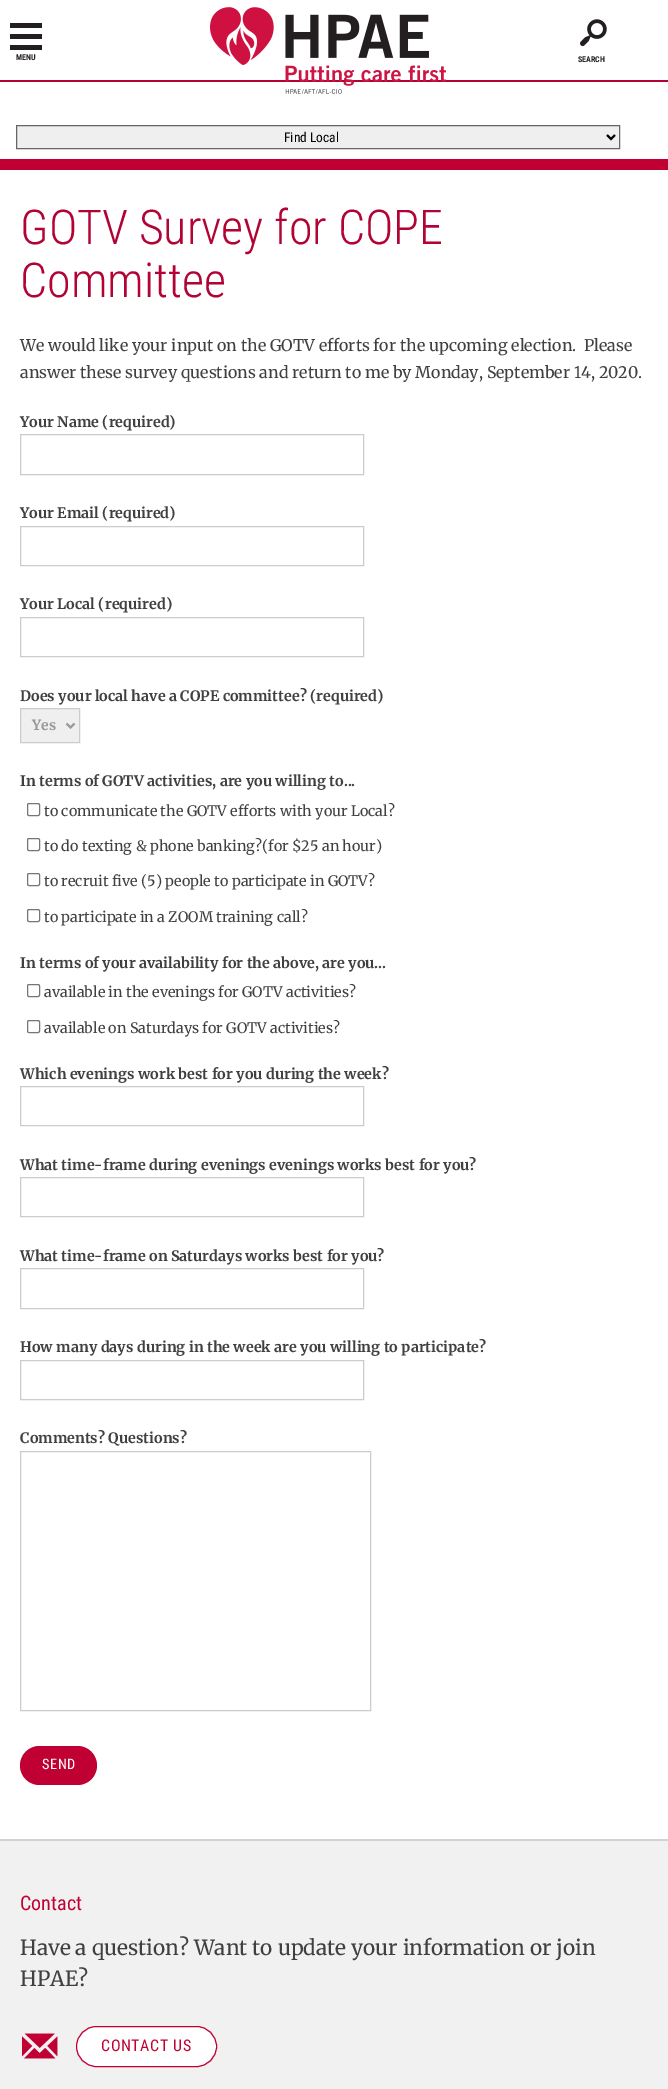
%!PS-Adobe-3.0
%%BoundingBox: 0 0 668 2089
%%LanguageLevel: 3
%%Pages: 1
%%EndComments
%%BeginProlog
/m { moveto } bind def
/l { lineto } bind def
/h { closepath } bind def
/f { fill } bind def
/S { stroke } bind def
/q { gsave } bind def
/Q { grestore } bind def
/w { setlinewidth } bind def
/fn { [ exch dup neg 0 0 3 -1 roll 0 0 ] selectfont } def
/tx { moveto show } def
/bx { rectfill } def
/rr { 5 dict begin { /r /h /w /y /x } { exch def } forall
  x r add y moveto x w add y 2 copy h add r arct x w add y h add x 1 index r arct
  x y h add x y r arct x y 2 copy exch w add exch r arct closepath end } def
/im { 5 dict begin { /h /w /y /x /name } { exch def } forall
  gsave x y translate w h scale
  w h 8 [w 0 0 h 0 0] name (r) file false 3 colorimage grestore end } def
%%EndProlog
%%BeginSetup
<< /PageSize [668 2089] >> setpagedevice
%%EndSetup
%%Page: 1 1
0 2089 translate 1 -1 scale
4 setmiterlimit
1 setgray
0 0 668 2089 bx
0.753 0 0.196 setrgbcolor
0 159 668 11 bx
0.137 0.122 0.125 setrgbcolor
10 23 32 5 bx
10 34 32 5 bx
10 45 32 5 bx
/RobotoCondensed-Bold 8 fn
(MENU) 16 60 tx
0.694 0.016 0.208 setrgbcolor
0 80 668 2 bx
(image0.raw) 210 7 236 87 im
(image1.raw) 580 19 27 28 im
0.137 0.122 0.125 setrgbcolor
(SEARCH) 578 62 tx
0.937 setgray
16.5 125.5 m 619.5 125.5 l 619.5 148.5 l 16.5 148.5 l h q f Q
0.4 setgray
S
0 setgray
2 w
607 135 m 611 139 l 615 135 l S
/RobotoCondensed-Regular 13.5 fn
(Find Local) 284 142 tx
/RobotoCondensed-Light 48 fn
0.694 0.016 0.208 setrgbcolor
(GOTV Survey for COPE) 20 244 tx
(Committee) 20 297 tx
/Merriweather-Regular 16 fn
0.251 0.251 0.255 setrgbcolor
(We would like your input on the GOTV efforts for the upcoming election.  Please) 20 351 tx
(answer these survey questions and return to me by Monday, September 14, 2020.) 20 378 tx
/Merriweather-Bold 14.4 fn
(Your Name \(required\)) 20 427 tx
0.8 setgray
1 w
20.5 434.5 343 40 rectstroke
0.251 0.251 0.255 setrgbcolor
(Your Email \(required\)) 20 518 tx
0.8 setgray
20.5 526.5 343 39 rectstroke
0.251 0.251 0.255 setrgbcolor
(Your Local \(required\)) 20 609 tx
0.8 setgray
20.5 617.5 343 39 rectstroke
0.251 0.251 0.255 setrgbcolor
(Does your local have a COPE committee? \(required\)) 20 701 tx
0.937 setgray
20.5 708.5 m 79.5 708.5 l 79.5 742.5 l 20.5 742.5 l h q f Q
0.8 setgray
S
0.6 setgray
2 w
66.5 723.5 m 70.5 727.5 l 74.5 723.5 l S
/Merriweather-Bold 14 fn
(Yes) 32 730 tx
/Merriweather-Bold 14.4 fn
0.251 0.251 0.255 setrgbcolor
(In terms of GOTV activities, are you willing to...) 20 786 tx
0.463 setgray
1 w
27.5 803.5 12 12 1.5 rr S
/Merriweather-Regular 14.4 fn
0.251 0.251 0.255 setrgbcolor
(to communicate the GOTV efforts with your Local?) 44 816 tx
0.463 setgray
27.5 838.5 12 12 1.5 rr S
0.251 0.251 0.255 setrgbcolor
(to do texting & phone banking?\(for $25 an hour\)) 44 851 tx
0.463 setgray
27.5 873.5 12 12 1.5 rr S
0.251 0.251 0.255 setrgbcolor
(to recruit five \(5\) people to participate in GOTV?) 44 886 tx
0.463 setgray
27.5 909.5 12 12 1.5 rr S
0.251 0.251 0.255 setrgbcolor
(to participate in a ZOOM training call?) 44 922 tx
/Merriweather-Bold 14.4 fn
(In terms of your availability for the above, are you...) 20 968 tx
0.463 setgray
27.5 984.5 12 12 1.5 rr S
/Merriweather-Regular 14.4 fn
0.251 0.251 0.255 setrgbcolor
(available in the evenings for GOTV activities?) 44 997 tx
0.463 setgray
27.5 1020.5 12 12 1.5 rr S
0.251 0.251 0.255 setrgbcolor
(available on Saturdays for GOTV activities?) 44 1033 tx
/Merriweather-Bold 14.4 fn
(Which evenings work best for you during the week?) 20 1079 tx
0.8 setgray
20.5 1086.5 343 39 rectstroke
0.251 0.251 0.255 setrgbcolor
(What time-frame during evenings evenings works best for you?) 20 1170 tx
0.8 setgray
20.5 1177.5 343 39 rectstroke
0.251 0.251 0.255 setrgbcolor
(What time-frame on Saturdays works best for you?) 20 1261 tx
0.8 setgray
20.5 1268.5 343 40 rectstroke
0.251 0.251 0.255 setrgbcolor
(How many days during in the week are you willing to participate?) 20 1352 tx
0.8 setgray
20.5 1360.5 343 39 rectstroke
0.251 0.251 0.255 setrgbcolor
(Comments? Questions?) 20 1443 tx
0.8 setgray
20.5 1451.5 350 259 rectstroke
0.753 0 0.196 setrgbcolor
20 1746 77 39 19.5 rr f
/RobotoCondensed-Regular 14.4 fn
1 setgray
42 1769 m 0.5 0 (SEND) ashow
0.816 0.824 0.827 setrgbcolor
0 1839 668 2 bx
0.945 0.945 0.949 setrgbcolor
0 1841 668 248 bx
/RobotoCondensed-Regular 20 fn
0.753 0 0.196 setrgbcolor
(Contact) 20 1910 tx
/Merriweather-Regular 20.8 fn
0.251 0.251 0.255 setrgbcolor
(Have a question? Want to update your information or join) 20 1955 tx
(HPAE?) 20 1986 tx
(image2.raw) 22 2033 36 26 im
1 setgray
76.5 2026.5 140 40 20 rr q f Q
0.753 0 0.196 setrgbcolor
S
/RobotoCondensed-Regular 16 fn
101 2051 m 0.6 0 (CONTACT US) ashow
showpage
%%EOF
